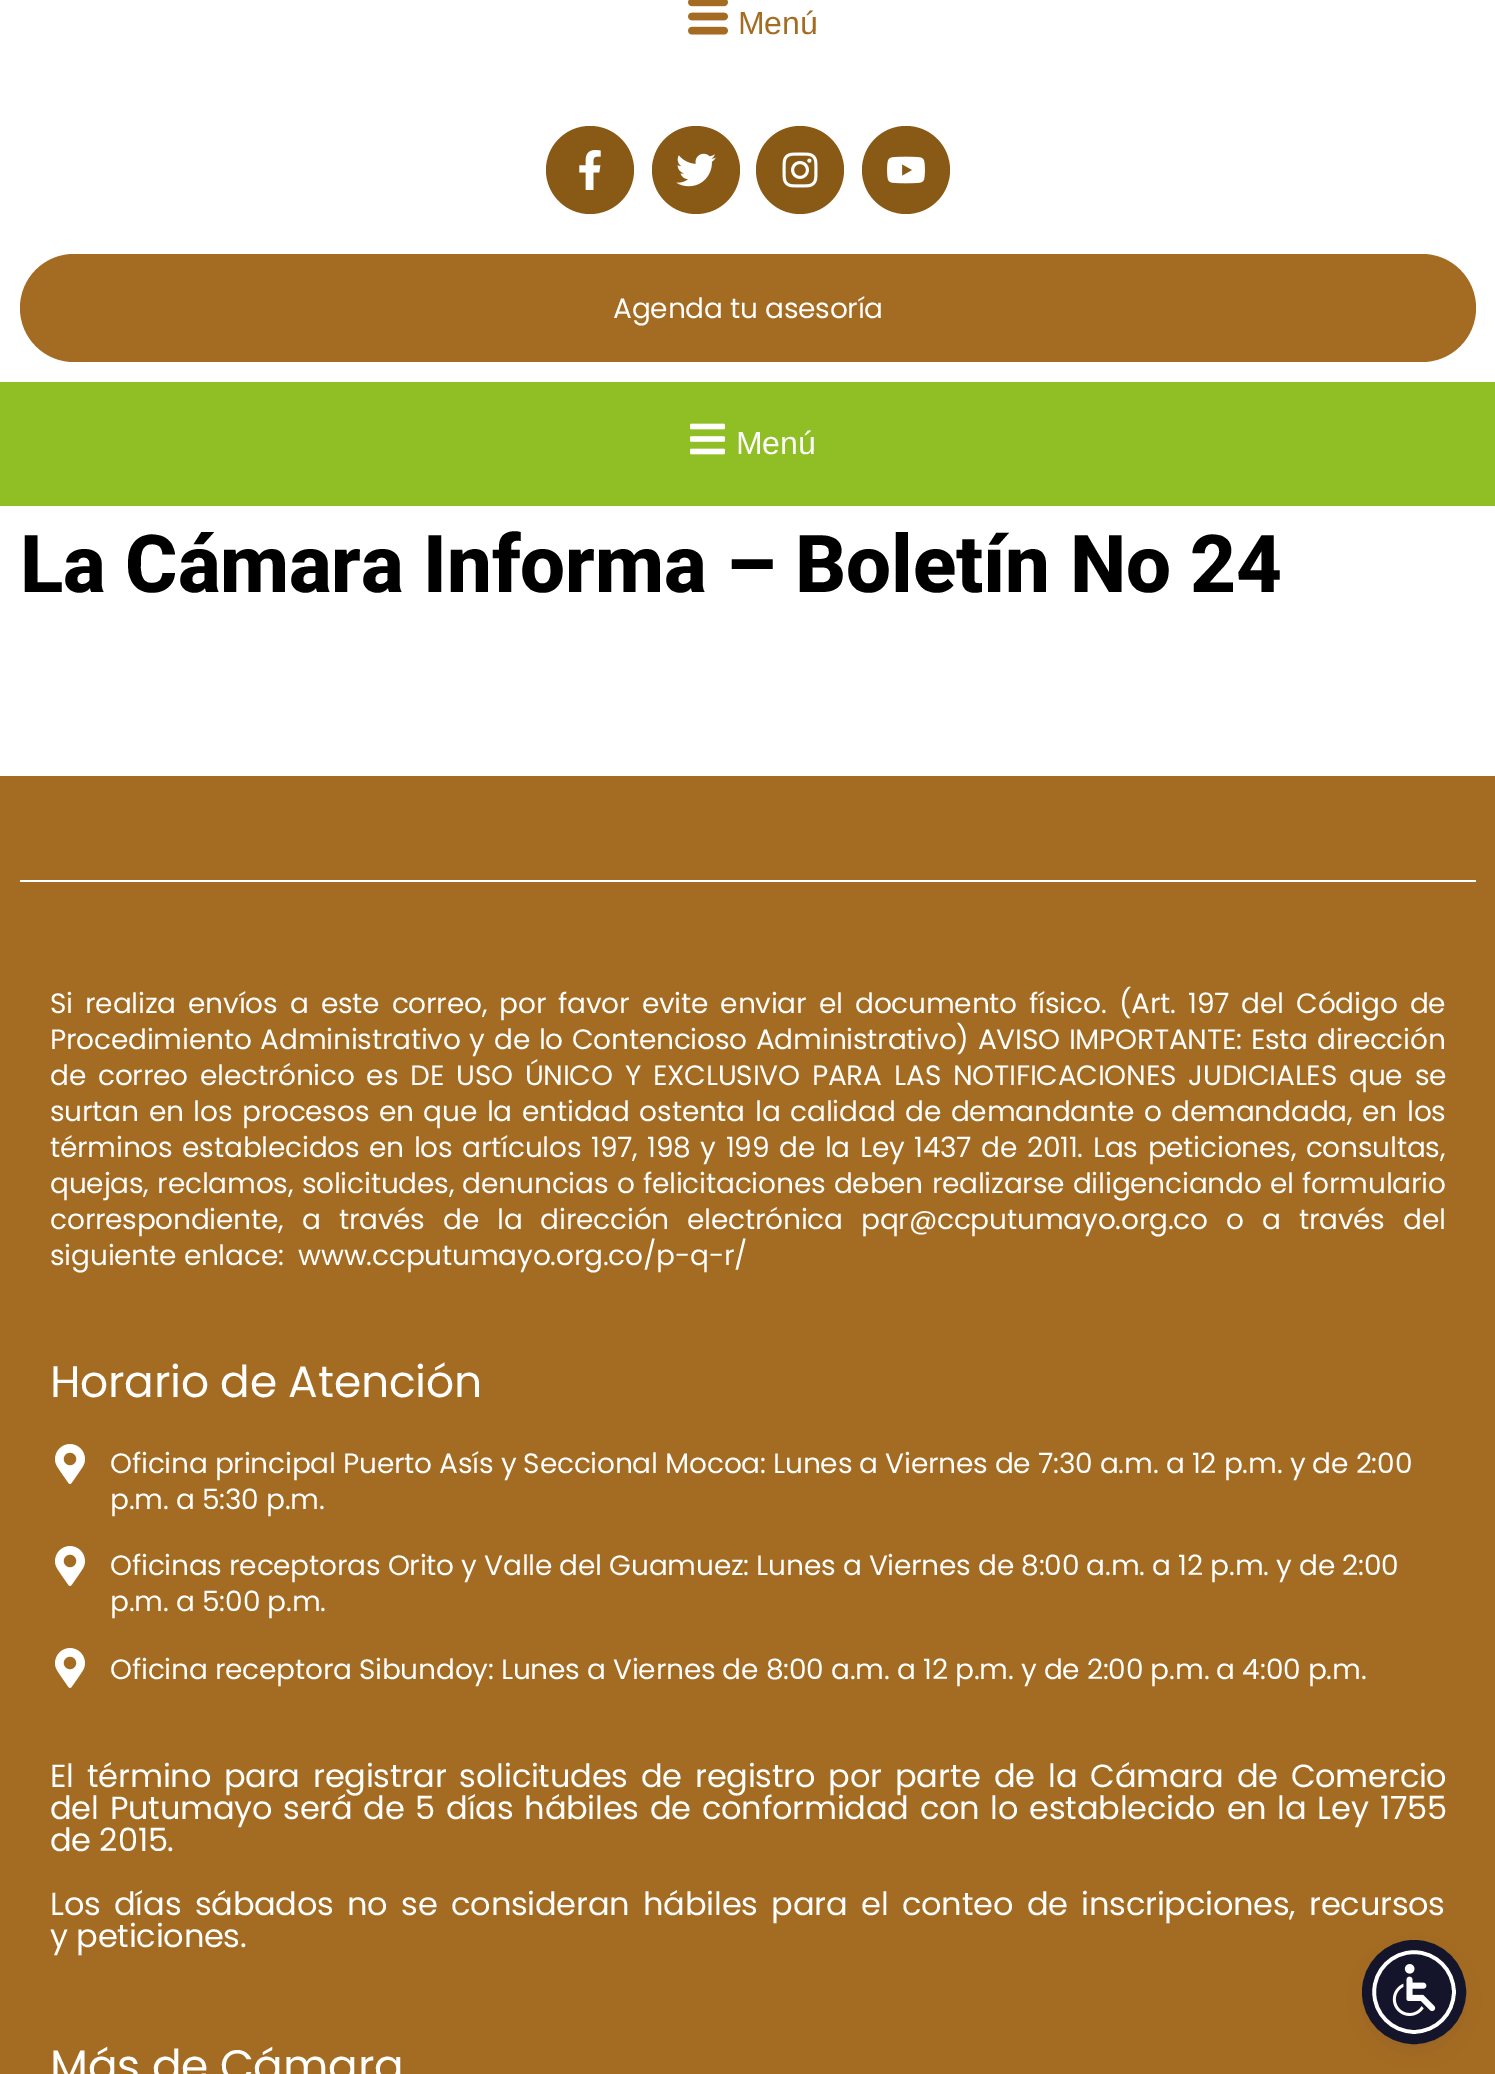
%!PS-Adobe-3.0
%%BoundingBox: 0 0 1495 2074
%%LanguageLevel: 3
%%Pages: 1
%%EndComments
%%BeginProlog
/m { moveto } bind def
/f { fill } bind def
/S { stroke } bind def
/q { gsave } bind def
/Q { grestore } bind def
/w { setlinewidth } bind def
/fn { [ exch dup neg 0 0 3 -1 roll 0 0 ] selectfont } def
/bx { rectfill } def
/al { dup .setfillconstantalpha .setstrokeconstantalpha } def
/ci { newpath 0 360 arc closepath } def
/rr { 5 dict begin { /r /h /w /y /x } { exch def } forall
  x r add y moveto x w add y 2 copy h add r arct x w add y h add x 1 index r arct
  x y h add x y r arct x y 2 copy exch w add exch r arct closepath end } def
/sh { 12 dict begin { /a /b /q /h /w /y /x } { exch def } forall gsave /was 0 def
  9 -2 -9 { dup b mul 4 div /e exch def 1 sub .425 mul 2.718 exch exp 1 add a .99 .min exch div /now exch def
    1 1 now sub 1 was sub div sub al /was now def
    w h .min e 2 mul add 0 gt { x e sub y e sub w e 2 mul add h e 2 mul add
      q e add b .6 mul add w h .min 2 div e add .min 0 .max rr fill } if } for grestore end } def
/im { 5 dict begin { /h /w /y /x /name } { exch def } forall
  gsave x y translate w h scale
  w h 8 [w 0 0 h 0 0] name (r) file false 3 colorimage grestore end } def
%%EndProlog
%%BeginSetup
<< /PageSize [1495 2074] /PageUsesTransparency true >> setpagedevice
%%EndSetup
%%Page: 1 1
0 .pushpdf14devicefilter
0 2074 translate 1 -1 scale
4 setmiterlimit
1 setgray
0 0 1495 2074 bx
(image0.raw) 688 0 40 35 im
/LiberationSans-Regular 32 fn
0.643 0.424 0.133 setrgbcolor
738 34 m -0.2 0 (Menú) ashow
0.537 0.349 0.086 setrgbcolor
590 170 44 ci f
(image1.raw) 579 150 22 40 im
696 170 44 ci f
(image2.raw) 676 153 40 34 im
800 170 44 ci f
(image3.raw) 782 152 36 36 im
906 170 44 ci f
(image4.raw) 887 156 38 28 im
0.643 0.424 0.133 setrgbcolor
20 254 1456 108 54 rr f
/Poppins-Regular 28 fn
1 setgray
613 318 m -0.2 0 (Agenda tu asesoría) ashow
0.561 0.749 0.141 setrgbcolor
0 382 1495 124 bx
(image5.raw) 690 423 35 32 im
/LiberationSans-Regular 32 fn
1 setgray
736 454 m -0.2 0 (Menú) ashow
/Roboto-ExtraBold 80 fn
0 setgray
20 592 m -0.2 0 (La Cámara Informa – Boletín No 24) ashow
0.643 0.424 0.133 setrgbcolor
0 776 1495 1298 bx
1 setgray
20 880 1456 2 bx
/Poppins-Regular 28 fn
50 1013 m 5 0 32 -0.2 0 (Si realiza envíos a este correo, por favor evite enviar el documento físico. \(Art. 197 del Código de) awidthshow
50 1049 m 1.6 0 32 -0.2 0 (Procedimiento Administrativo y de lo Contencioso Administrativo\) AVISO IMPORTANTE: Esta dirección) awidthshow
50 1085 m 4.75 0 32 -0.2 0 (de correo electrónico es DE USO ÚNICO Y EXCLUSIVO PARA LAS NOTIFICACIONES JUDICIALES que se) awidthshow
50 1121 m 2.5 0 32 -0.2 0 (surtan en los procesos en que la entidad ostenta la calidad de demandante o demandada, en los) awidthshow
50 1157 m 2.4 0 32 -0.2 0 (términos establecidos en los artículos 197, 198 y 199 de la Ley 1437 de 2011. Las peticiones, consultas,) awidthshow
50 1193 m 1.25 0 32 -0.2 0 (quejas, reclamos, solicitudes, denuncias o felicitaciones deben realizarse diligenciando el formulario) awidthshow
50 1229 m 10.9 0 32 -0.2 0 (correspondiente, a través de la dirección electrónica pqr@ccputumayo.org.co o a través del) awidthshow
50 1265 m -0.2 0 (siguiente enlace:  www.ccputumayo.org.co/p-q-r/) ashow
/Poppins-Regular 44 fn
50 1397 m -0.2 0 (Horario de Atención) ashow
(image6.raw) 55 1444 30 40 im
/Poppins-Regular 28 fn
110 1473 m -0.2 0 (Oficina principal Puerto Asís y Seccional Mocoa: Lunes a Viernes de 7:30 a.m. a 12 p.m. y de 2:00) ashow
110 1509 m -0.2 0 (p.m. a 5:30 p.m.) ashow
(image6.raw) 55 1546 30 40 im
110 1575 m -0.2 0 (Oficinas receptoras Orito y Valle del Guamuez: Lunes a Viernes de 8:00 a.m. a 12 p.m. y de 2:00) ashow
110 1611 m -0.2 0 (p.m. a 5:00 p.m.) ashow
(image6.raw) 55 1648 30 40 im
110 1679 m -0.2 0 (Oficina receptora Sibundoy: Lunes a Viernes de 8:00 a.m. a 12 p.m. y de 2:00 p.m. a 4:00 p.m.) ashow
/Poppins-Regular 32 fn
50 1787 m 4.75 0 32 -0.2 0 (El término para registrar solicitudes de registro por parte de la Cámara de Comercio) awidthshow
50 1819 m 2.6 0 32 -0.2 0 (del Putumayo será de 5 días hábiles de conformidad con lo establecido en la Ley 1755) awidthshow
50 1851 m -0.2 0 (de 2015.) ashow
50 1915 m 5.25 0 32 -0.2 0 (Los días sábados no se consideran hábiles para el conteo de inscripciones, recursos) awidthshow
50 1947 m -0.2 0 (y peticiones.) ashow
/Poppins-Regular 44 fn
50 2081 m -0.2 0 (Más de Cámara) ashow
0.365 0.392 0.58 setrgbcolor
1372 1954 84 84 42 4 0.2 sh
0.145 0.173 0.38 setrgbcolor
1372 1960 84 84 42 15 0.15 sh
0.078 0.078 0.165 setrgbcolor
1414 1992 40 ci q f Q
1 setgray
4 w
S
0.078 0.078 0.165 setrgbcolor
10 w
1414 1992 47 ci S
(image7.raw) 1392 1964 44 52 im
.poppdf14devicefilter showpage
%%EOF
